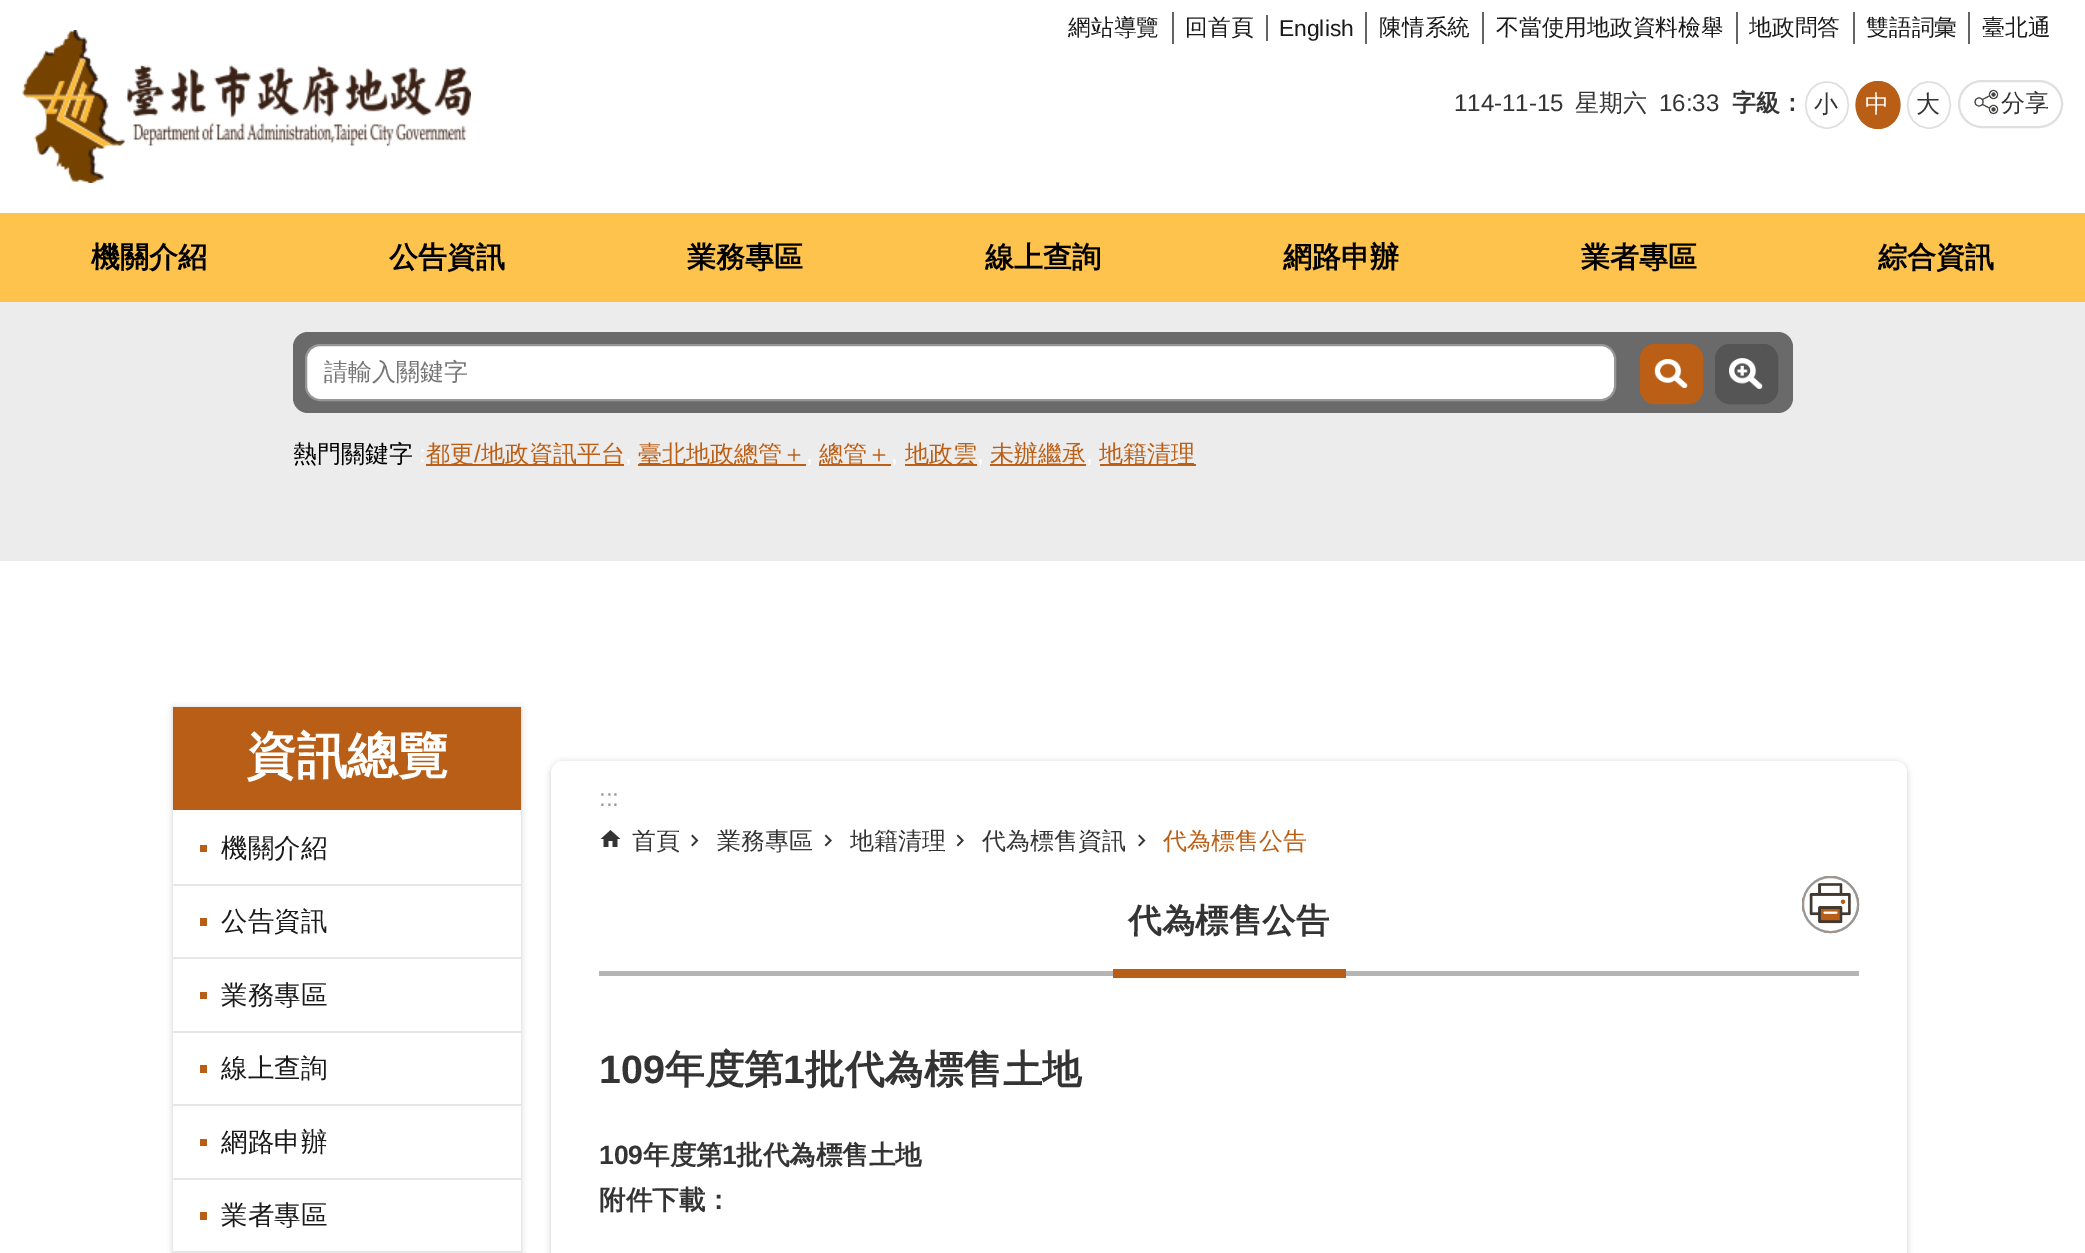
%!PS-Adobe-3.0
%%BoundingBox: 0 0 2085 1253
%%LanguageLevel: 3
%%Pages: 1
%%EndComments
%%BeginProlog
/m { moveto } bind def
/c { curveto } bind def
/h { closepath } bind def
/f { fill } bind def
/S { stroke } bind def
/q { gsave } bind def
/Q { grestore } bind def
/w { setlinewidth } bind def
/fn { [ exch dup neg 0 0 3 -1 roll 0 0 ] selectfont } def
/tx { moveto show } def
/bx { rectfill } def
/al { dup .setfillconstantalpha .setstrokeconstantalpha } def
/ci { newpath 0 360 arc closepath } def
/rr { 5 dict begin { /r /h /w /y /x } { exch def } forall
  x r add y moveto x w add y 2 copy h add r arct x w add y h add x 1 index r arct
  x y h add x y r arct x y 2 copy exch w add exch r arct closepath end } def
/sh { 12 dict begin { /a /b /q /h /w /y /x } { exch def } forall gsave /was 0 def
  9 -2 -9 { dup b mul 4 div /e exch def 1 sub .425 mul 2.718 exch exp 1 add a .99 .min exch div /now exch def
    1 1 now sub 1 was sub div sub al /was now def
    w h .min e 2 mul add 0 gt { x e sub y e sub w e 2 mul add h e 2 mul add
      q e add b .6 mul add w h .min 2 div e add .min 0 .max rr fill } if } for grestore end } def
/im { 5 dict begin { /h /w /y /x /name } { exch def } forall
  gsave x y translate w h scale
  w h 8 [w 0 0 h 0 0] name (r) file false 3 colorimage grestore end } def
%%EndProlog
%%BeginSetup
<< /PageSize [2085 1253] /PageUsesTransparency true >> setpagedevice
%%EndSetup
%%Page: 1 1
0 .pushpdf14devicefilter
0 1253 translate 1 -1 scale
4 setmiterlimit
0.925 setgray
0 0 2085 1253 bx
1 setgray
0 0 2085 213 bx
(image0.raw) 22 30 449 153 im
/WenQuanYiZenHei-Medium 22.75 fn
0.102 setgray
(網站導覽) 1068 35 tx
0.392 setgray
1172 12 2 32 bx
0.102 setgray
(回首頁) 1185 35 tx
0.392 setgray
1266 15 2 26 bx
/LiberationSans-Regular 22.75 fn
0.102 setgray
(English) 1279 36 tx
0.392 setgray
1365 12 2 32 bx
/WenQuanYiZenHei-Medium 22.75 fn
0.102 setgray
(陳情系統) 1379 35 tx
0.392 setgray
1482 12 2 32 bx
0.102 setgray
(不當使用地政資料檢舉) 1496 35 tx
0.392 setgray
1736 12 2 32 bx
0.102 setgray
(地政問答) 1749 35 tx
0.392 setgray
1853 12 2 32 bx
0.102 setgray
(雙語詞彙) 1866 35 tx
0.392 setgray
1968 12 2 32 bx
0.102 setgray
(臺北通) 1982 35 tx
/LiberationSans-Regular 24 fn
0.204 setgray
(114-11-15) 1454 111 tx
/WenQuanYiZenHei-Medium 24 fn
(星期六) 1575 111 tx
/LiberationSans-Regular 24 fn
(16:33) 1659 111 tx
/WenQuanYiZenHei-Bold 24 fn
(字級：) 1732 111 tx
0.875 setgray
1.5 w
1827 82 m 1855.5 82 1855.5 128 1827 128 c 1798.5 128 1798.5 82 1827 82 c h S
/WenQuanYiZenHei-Medium 24 fn
0.204 setgray
(小) 1814 112 tx
0.722 0.369 0.09 setrgbcolor
1878 81 m 1890.5 81 1900.5 91.5 1900.5 105 c 1900.5 118.5 1890.5 129 1878 129 c 1865.5 129 1855.5 118.5 1855.5 105 c 1855.5 91.5 1865.5 81 1878 81 c h f
1878 82 m 1906.5 82 1906.5 128 1878 128 c 1849.5 128 1849.5 82 1878 82 c h S
1 setgray
(中) 1865 112 tx
0.875 setgray
1929 82 m 1957.5 82 1957.5 128 1929 128 c 1900.5 128 1900.5 82 1929 82 c h S
0.204 setgray
(大) 1916 112 tx
0.875 setgray
2 w
1959 81 103 46 23 rr S
(image1.raw) 1974 89 25 26 im
0.204 setgray
(分享) 2001 111 tx
0.992 0.765 0.302 setrgbcolor
0 213 2085 89 bx
/WenQuanYiZenHei-Bold 29 fn
0 setgray
(機關介紹) 91 267 tx
(公告資訊) 389 267 tx
(業務專區) 687 267 tx
(線上查詢) 985 267 tx
(網路申辦) 1283 267 tx
(業者專區) 1581 267 tx
(綜合資訊) 1878 267 tx
0.416 setgray
293 332 1500 81 15 rr f
1 setgray
306 345 1309 55 14 rr q f Q
0.588 setgray
S
/WenQuanYiZenHei-Medium 24 fn
0.459 setgray
(請輸入關鍵字) 324 380 tx
0.733 0.373 0.086 setrgbcolor
1640 344 63 60 15 rr f
(image2.raw) 1654 359 34 29 im
1641 345 61 58 14 rr S
0.333 setgray
1715 344 63 60 15 rr f
(image3.raw) 1729 358 34 31 im
1716 345 61 58 14 rr S
0 setgray
(熱門關鍵字) 293 462 tx
/LiberationSans-Regular 24 fn
1 setgray
(:) 419 462 tx
0.733 0.373 0.086 setrgbcolor
426 464 198 2 bx
/WenQuanYiZenHei-Medium 24 fn
(都更) 426 462 tx
/LiberationSans-Regular 24 fn
(/) 474 462 tx
/WenQuanYiZenHei-Medium 24 fn
(地政資訊平台) 481 462 tx
/LiberationSans-Regular 24 fn
1 setgray
(,) 625 462 tx
0.733 0.373 0.086 setrgbcolor
638 464 168 2 bx
/WenQuanYiZenHei-Medium 24 fn
(臺北地政總管＋) 638 462 tx
/LiberationSans-Regular 24 fn
1 setgray
(,) 806 462 tx
0.733 0.373 0.086 setrgbcolor
819 464 72 2 bx
/WenQuanYiZenHei-Medium 24 fn
(總管＋) 819 462 tx
/LiberationSans-Regular 24 fn
1 setgray
(,) 891 462 tx
0.733 0.373 0.086 setrgbcolor
905 464 72 2 bx
/WenQuanYiZenHei-Medium 24 fn
(地政雲) 905 462 tx
/LiberationSans-Regular 24 fn
1 setgray
(,) 977 462 tx
0.733 0.373 0.086 setrgbcolor
990 464 96 2 bx
/WenQuanYiZenHei-Medium 24 fn
(未辦繼承) 990 462 tx
/LiberationSans-Regular 24 fn
1 setgray
(,) 1086 462 tx
0.733 0.373 0.086 setrgbcolor
1100 464 96 2 bx
/WenQuanYiZenHei-Medium 24 fn
(地籍清理) 1099 462 tx
1 setgray
0 561 2085 692 bx
0 setgray
173 708 348 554 0 3 0.2 sh
1 setgray
173 810 348 441 bx
0.722 0.369 0.09 setrgbcolor
173 707 348 103 bx
/WenQuanYiZenHei-Bold 50.5 fn
1 setgray
(資訊總覽) 246 773 tx
0.722 0.369 0.09 setrgbcolor
200 845 7 7 bx
/WenQuanYiZenHei-Medium 26.5 fn
0.102 setgray
(機關介紹) 221 857 tx
0.902 setgray
173 884 348 2 bx
0.722 0.369 0.09 setrgbcolor
200 918 7 8 bx
0.102 setgray
(公告資訊) 221 930 tx
0.902 setgray
173 957 348 2 bx
0.722 0.369 0.09 setrgbcolor
200 992 7 7 bx
0.102 setgray
(業務專區) 221 1004 tx
0.902 setgray
173 1031 348 2 bx
0.722 0.369 0.09 setrgbcolor
200 1065 7 8 bx
0.102 setgray
(線上查詢) 221 1077 tx
0.902 setgray
173 1104 348 2 bx
0.722 0.369 0.09 setrgbcolor
200 1139 7 7 bx
0.102 setgray
(網路申辦) 221 1151 tx
0.902 setgray
173 1178 348 2 bx
0.722 0.369 0.09 setrgbcolor
200 1212 7 8 bx
0.102 setgray
(業者專區) 221 1224 tx
0.902 setgray
173 1251 348 2 bx
0 setgray
551 762 1356 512 12 3 0.2 sh
1 setgray
551 761 1356 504 12 rr f
/LiberationSans-Regular 24 fn
0.592 setgray
(:::) 599 806 tx
(image4.raw) 600 830 21 17 im
/WenQuanYiZenHei-Medium 24 fn
0.204 setgray
(首頁) 632 849 tx
(image5.raw) 691 834 8 13 im
(業務專區) 717 849 tx
(image6.raw) 824 834 8 13 im
(地籍清理) 850 849 tx
(image6.raw) 956 834 8 13 im
(代為標售資訊) 982 849 tx
(image5.raw) 1138 834 8 13 im
0.733 0.373 0.086 setrgbcolor
(代為標售公告) 1163 849 tx
0.71 setgray
599 971 1260 5 bx
/WenQuanYiZenHei-Bold 33.5 fn
0.204 setgray
(代為標售公告) 1128 932 tx
0.722 0.369 0.09 setrgbcolor
1830.5 904.5 28.5 ci f
(image7.raw) 1803 877 54 55 im
0.592 setgray
1830.5 904.5 27.5 ci S
0.722 0.369 0.09 setrgbcolor
1113 969 233 9 bx
/LiberationSans-Bold 39.5 fn
0.204 setgray
(109) 599 1083 tx
/WenQuanYiZenHei-Bold 39.5 fn
(年度第) 665 1083 tx
/LiberationSans-Bold 39.5 fn
(1) 783 1083 tx
/WenQuanYiZenHei-Bold 39.5 fn
(批代為標售土地) 805 1083 tx
/LiberationSans-Bold 26.5 fn
(109) 599 1164 tx
/WenQuanYiZenHei-Bold 26.5 fn
(年度第) 643 1164 tx
/LiberationSans-Bold 26.5 fn
(1) 722 1164 tx
/WenQuanYiZenHei-Bold 26.5 fn
(批代為標售土地) 736 1164 tx
(附件下載：) 599 1209 tx
.poppdf14devicefilter showpage
%%EOF
